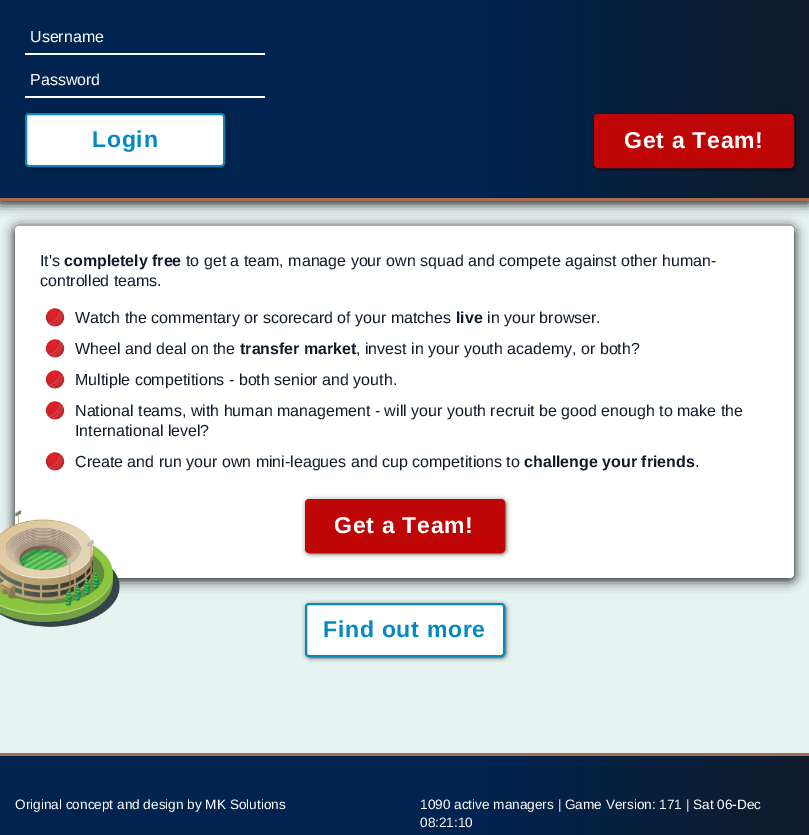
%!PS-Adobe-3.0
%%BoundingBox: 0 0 809 835
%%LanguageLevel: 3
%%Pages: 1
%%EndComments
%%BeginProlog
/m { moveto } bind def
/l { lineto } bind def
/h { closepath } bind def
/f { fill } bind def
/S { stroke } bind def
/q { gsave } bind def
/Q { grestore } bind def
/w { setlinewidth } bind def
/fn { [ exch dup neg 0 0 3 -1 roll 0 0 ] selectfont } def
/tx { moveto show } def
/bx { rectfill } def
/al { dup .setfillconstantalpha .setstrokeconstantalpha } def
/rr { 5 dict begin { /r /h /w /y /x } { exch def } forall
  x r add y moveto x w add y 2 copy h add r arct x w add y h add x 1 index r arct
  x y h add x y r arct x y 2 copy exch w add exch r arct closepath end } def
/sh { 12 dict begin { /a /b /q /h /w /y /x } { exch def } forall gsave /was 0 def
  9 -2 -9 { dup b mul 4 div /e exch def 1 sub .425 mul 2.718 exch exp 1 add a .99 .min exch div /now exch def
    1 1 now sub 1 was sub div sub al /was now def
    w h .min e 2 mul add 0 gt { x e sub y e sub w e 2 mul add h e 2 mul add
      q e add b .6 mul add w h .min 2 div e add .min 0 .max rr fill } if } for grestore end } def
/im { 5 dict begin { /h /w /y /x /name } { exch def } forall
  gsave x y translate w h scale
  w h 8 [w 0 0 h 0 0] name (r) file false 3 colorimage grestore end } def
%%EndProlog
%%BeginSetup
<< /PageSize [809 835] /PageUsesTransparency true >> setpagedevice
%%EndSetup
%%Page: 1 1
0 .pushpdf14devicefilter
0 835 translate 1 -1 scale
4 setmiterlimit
0.902 0.957 0.945 setrgbcolor
0 0 809 835 bx
0 setgray
0 -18 809 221 0 6 1 sh
q 0 0 m 809 0 l 809 198 l 0 198 l h clip newpath
<< /ShadingType 2 /ColorSpace /DeviceRGB /Coords [0 19 809 19] /Extend [true true] /Function << /FunctionType 3 /Domain [0 1] /Functions [<< /FunctionType 2 /Domain [0 1] /C0 [0 0.141 0.31] /C1 [0 0.141 0.31] /N 1 >> << /FunctionType 2 /Domain [0 1] /C0 [0 0.141 0.31] /C1 [0.059 0.106 0.169] /N 1 >>] /Bounds [0.6] /Encode [0 1 0 1] >> >> shfill Q
0.651 0.42 0.318 setrgbcolor
0 198 809 3 bx
1 setgray
25 53 240 2 bx
/LiberationSans-Regular 16 fn
(Username) 30 42 tx
25 96 240 2 bx
(Password) 30 85 tx
0 setgray
27 115 198 52 3 2.5 1 sh
1 setgray
26 114 198 52 3 rr q f Q
0.016 0.541 0.749 setrgbcolor
2 w
S
/LiberationSans-Bold 23 fn
92 147 m 0.75 0 (Login) ashow
0 setgray
596 116 198 52 3 2.5 1 sh
0.749 0.024 0.024 setrgbcolor
595 115 198 52 3 rr q f Q
S
1 setgray
624 148 m 0.75 0 (Get a Team!) ashow
0 setgray
15 228 779 352 4 6 1 sh
1 setgray
15 226 779 352 4 rr f
/LiberationSans-Regular 16 fn
0.059 0.106 0.169 setrgbcolor
(It's) 40 266 tx
/LiberationSans-Bold 16 fn
(completely free) 64 266 tx
/LiberationSans-Regular 16 fn
(to get a team, manage your own squad and compete against other human-) 186 266 tx
(controlled teams.) 40 286 tx
(image0.raw) 45 308 20 19 im
(Watch the commentary or scorecard of your matches) 75 323 tx
/LiberationSans-Bold 16 fn
(live) 456 323 tx
/LiberationSans-Regular 16 fn
(in your browser.) 487 323 tx
(image1.raw) 45 339 20 19 im
(Wheel and deal on the) 75 354 tx
/LiberationSans-Bold 16 fn
(transfer market) 240 354 tx
/LiberationSans-Regular 16 fn
(, invest in your youth academy, or both?) 356 354 tx
(image2.raw) 45 370 20 19 im
(Multiple competitions - both senior and youth.) 75 385 tx
(image3.raw) 45 401 20 19 im
(National teams, with human management - will your youth recruit be good enough to make the) 75 416 tx
(International level?) 75 436 tx
(image0.raw) 45 452 20 19 im
(Create and run your own mini-leagues and cup competitions to) 75 467 tx
/LiberationSans-Bold 16 fn
(challenge your friends) 524 467 tx
/LiberationSans-Regular 16 fn
(.) 695 467 tx
(image4.raw) 0 509 120 118 im
0 setgray
307 501 198 52 3 2.5 1 sh
0.749 0.024 0.024 setrgbcolor
306 500 198 52 3 rr q f Q
S
/LiberationSans-Bold 23 fn
1 setgray
334 533 m 0.75 0 (Get a Team!) ashow
0 setgray
307 605 198 52 3 2.5 1 sh
1 setgray
306 604 198 52 3 rr q f Q
0.016 0.541 0.749 setrgbcolor
S
323 637 m 0.75 0 (Find out more) ashow
q 0 756 m 809 756 l 809 835 l 0 835 l h clip newpath
<< /ShadingType 2 /ColorSpace /DeviceRGB /Coords [0 814 809 814] /Extend [true true] /Function << /FunctionType 3 /Domain [0 1] /Functions [<< /FunctionType 2 /Domain [0 1] /C0 [0 0.141 0.31] /C1 [0 0.141 0.31] /N 1 >> << /FunctionType 2 /Domain [0 1] /C0 [0 0.141 0.31] /C1 [0.059 0.106 0.169] /N 1 >>] /Bounds [0.6] /Encode [0 1 0 1] >> >> shfill Q
0.651 0.42 0.318 setrgbcolor
0 753 809 3 bx
/LiberationSans-Regular 13.6 fn
1 setgray
(Original concept and design by MK Solutions) 15 809 tx
(1090 active managers | Game Version: 171 | Sat 06-Dec) 420 809 tx
(08:21:10) 420 827 tx
.poppdf14devicefilter showpage
%%EOF
